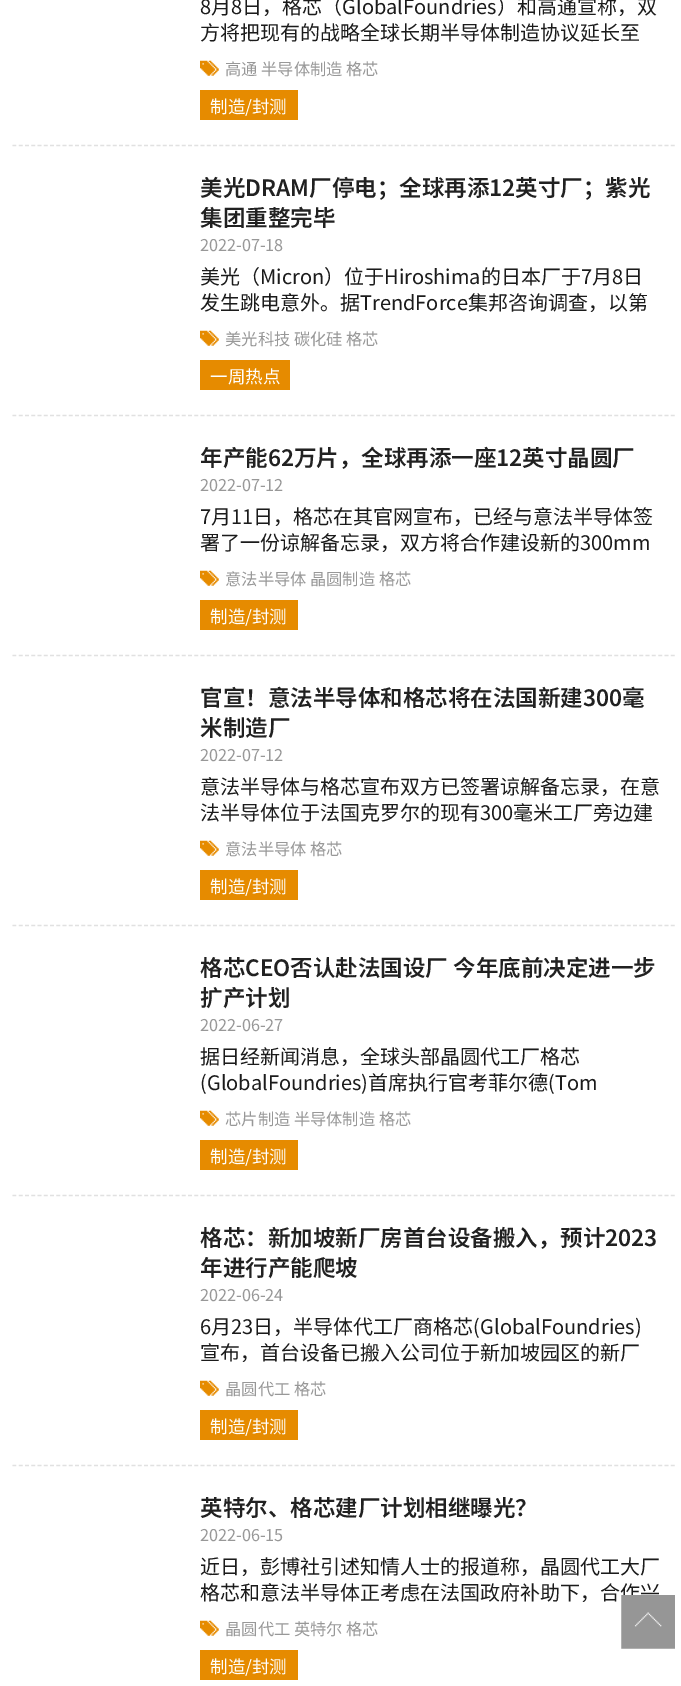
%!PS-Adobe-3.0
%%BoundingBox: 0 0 681 1686
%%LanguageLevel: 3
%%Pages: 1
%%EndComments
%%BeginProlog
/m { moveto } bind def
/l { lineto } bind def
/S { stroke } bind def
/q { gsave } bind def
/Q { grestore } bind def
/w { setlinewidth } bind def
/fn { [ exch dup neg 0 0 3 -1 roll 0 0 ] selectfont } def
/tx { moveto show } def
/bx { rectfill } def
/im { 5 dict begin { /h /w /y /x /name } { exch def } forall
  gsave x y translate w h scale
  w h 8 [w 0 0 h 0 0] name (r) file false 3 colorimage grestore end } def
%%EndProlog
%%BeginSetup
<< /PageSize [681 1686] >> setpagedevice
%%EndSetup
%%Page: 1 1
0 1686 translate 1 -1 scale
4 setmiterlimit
1 setgray
0 0 681 1686 bx
q
6 0 669 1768 rectclip
0.882 setgray
1.2 w
[3.75 2.52] 0 setdash
12.5 145.5 m 681 145.5 l S
Q
/NotoSansSC-Regular 20 fn
0.106 setgray
(8月8日，格芯（GlobalFoundries）和高通宣称，双) 200 14 tx
(方将把现有的战略全球长期半导体制造协议延长至) 200 40 tx
(image0.raw) 200 60 19 16 im
/NotoSansSC-Regular 16.25 fn
0.596 setgray
(高通 半导体制造 格芯) 225 75 tx
0.902 0.545 0 setrgbcolor
200 90 98 30 bx
/NotoSansSC-Regular 17.5 fn
1 setgray
(制造/封测) 210 113 tx
q
6 0 669 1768 rectclip
0.882 setgray
1.2 w
[3.75 2.52] 0 setdash
12.5 415.5 m 681 415.5 l S
Q
/NotoSansSC-SemiBold 22.5 fn
0.129 setgray
(美光DRAM厂停电；全球再添12英寸厂；紫光) 200 196 tx
(集团重整完毕) 200 226 tx
/NotoSansSC-Regular 16.25 fn
0.596 setgray
(2022-07-18) 200 251 tx
/NotoSansSC-Regular 20 fn
0.106 setgray
(美光（Micron）位于Hiroshima的日本厂于7月8日) 200 284 tx
(发生跳电意外。据TrendForce集邦咨询调查，以第) 200 310 tx
(image0.raw) 200 330 19 16 im
/NotoSansSC-Regular 16.25 fn
0.596 setgray
(美光科技 碳化硅 格芯) 225 345 tx
0.902 0.545 0 setrgbcolor
200 360 90 30 bx
/NotoSansSC-Regular 17.5 fn
1 setgray
(一周热点) 210 383 tx
q
6 0 669 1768 rectclip
0.882 setgray
1.2 w
[3.75 2.52] 0 setdash
12.5 655.5 m 681 655.5 l S
Q
/NotoSansSC-SemiBold 22.5 fn
0.129 setgray
(年产能62万片，全球再添一座12英寸晶圆厂) 200 466 tx
/NotoSansSC-Regular 16.25 fn
0.596 setgray
(2022-07-12) 200 491 tx
/NotoSansSC-Regular 20 fn
0.106 setgray
(7月11日，格芯在其官网宣布，已经与意法半导体签) 200 524 tx
(署了一份谅解备忘录，双方将合作建设新的300mm) 200 550 tx
(image0.raw) 200 570 19 16 im
/NotoSansSC-Regular 16.25 fn
0.596 setgray
(意法半导体 晶圆制造 格芯) 225 585 tx
0.902 0.545 0 setrgbcolor
200 600 98 30 bx
/NotoSansSC-Regular 17.5 fn
1 setgray
(制造/封测) 210 623 tx
q
6 0 669 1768 rectclip
0.882 setgray
1.2 w
[3.75 2.52] 0 setdash
12.5 925.5 m 681 925.5 l S
Q
/NotoSansSC-SemiBold 22.5 fn
0.129 setgray
(官宣！意法半导体和格芯将在法国新建300毫) 200 706 tx
(米制造厂) 200 736 tx
/NotoSansSC-Regular 16.25 fn
0.596 setgray
(2022-07-12) 200 761 tx
/NotoSansSC-Regular 20 fn
0.106 setgray
(意法半导体与格芯宣布双方已签署谅解备忘录，在意) 200 794 tx
(法半导体位于法国克罗尔的现有300毫米工厂旁边建) 200 820 tx
(image0.raw) 200 840 19 16 im
/NotoSansSC-Regular 16.25 fn
0.596 setgray
(意法半导体 格芯) 225 855 tx
0.902 0.545 0 setrgbcolor
200 870 98 30 bx
/NotoSansSC-Regular 17.5 fn
1 setgray
(制造/封测) 210 893 tx
q
6 0 669 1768 rectclip
0.882 setgray
1.2 w
[3.75 2.52] 0 setdash
12.5 1195.5 m 681 1195.5 l S
Q
/NotoSansSC-SemiBold 22.5 fn
0.129 setgray
(格芯CEO否认赴法国设厂 今年底前决定进一步) 200 976 tx
(扩产计划) 200 1006 tx
/NotoSansSC-Regular 16.25 fn
0.596 setgray
(2022-06-27) 200 1031 tx
/NotoSansSC-Regular 20 fn
0.106 setgray
(据日经新闻消息，全球头部晶圆代工厂格芯) 200 1064 tx
(\(GlobalFoundries\)首席执行官考菲尔德\(Tom) 200 1090 tx
(image0.raw) 200 1110 19 16 im
/NotoSansSC-Regular 16.25 fn
0.596 setgray
(芯片制造 半导体制造 格芯) 225 1125 tx
0.902 0.545 0 setrgbcolor
200 1140 98 30 bx
/NotoSansSC-Regular 17.5 fn
1 setgray
(制造/封测) 210 1163 tx
q
6 0 669 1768 rectclip
0.882 setgray
1.2 w
[3.75 2.52] 0 setdash
12.5 1465.5 m 681 1465.5 l S
Q
/NotoSansSC-SemiBold 22.5 fn
0.129 setgray
(格芯：新加坡新厂房首台设备搬入，预计2023) 200 1246 tx
(年进行产能爬坡) 200 1276 tx
/NotoSansSC-Regular 16.25 fn
0.596 setgray
(2022-06-24) 200 1301 tx
/NotoSansSC-Regular 20 fn
0.106 setgray
(6月23日，半导体代工厂商格芯\(GlobalFoundries\)) 200 1334 tx
(宣布，首台设备已搬入公司位于新加坡园区的新厂) 200 1360 tx
(image0.raw) 200 1380 19 16 im
/NotoSansSC-Regular 16.25 fn
0.596 setgray
(晶圆代工 格芯) 225 1395 tx
0.902 0.545 0 setrgbcolor
200 1410 98 30 bx
/NotoSansSC-Regular 17.5 fn
1 setgray
(制造/封测) 210 1433 tx
/NotoSansSC-SemiBold 22.5 fn
0.129 setgray
(英特尔、格芯建厂计划相继曝光？) 200 1516 tx
/NotoSansSC-Regular 16.25 fn
0.596 setgray
(2022-06-15) 200 1541 tx
/NotoSansSC-Regular 20 fn
0.106 setgray
(近日，彭博社引述知情人士的报道称，晶圆代工大厂) 200 1574 tx
(格芯和意法半导体正考虑在法国政府补助下，合作兴) 200 1600 tx
(image0.raw) 200 1620 19 16 im
/NotoSansSC-Regular 16.25 fn
0.596 setgray
(晶圆代工 英特尔 格芯) 225 1635 tx
0.902 0.545 0 setrgbcolor
200 1650 98 30 bx
/NotoSansSC-Regular 17.5 fn
1 setgray
(制造/封测) 210 1673 tx
(image1.raw) 621 1595 54 54 im
showpage
%%EOF
